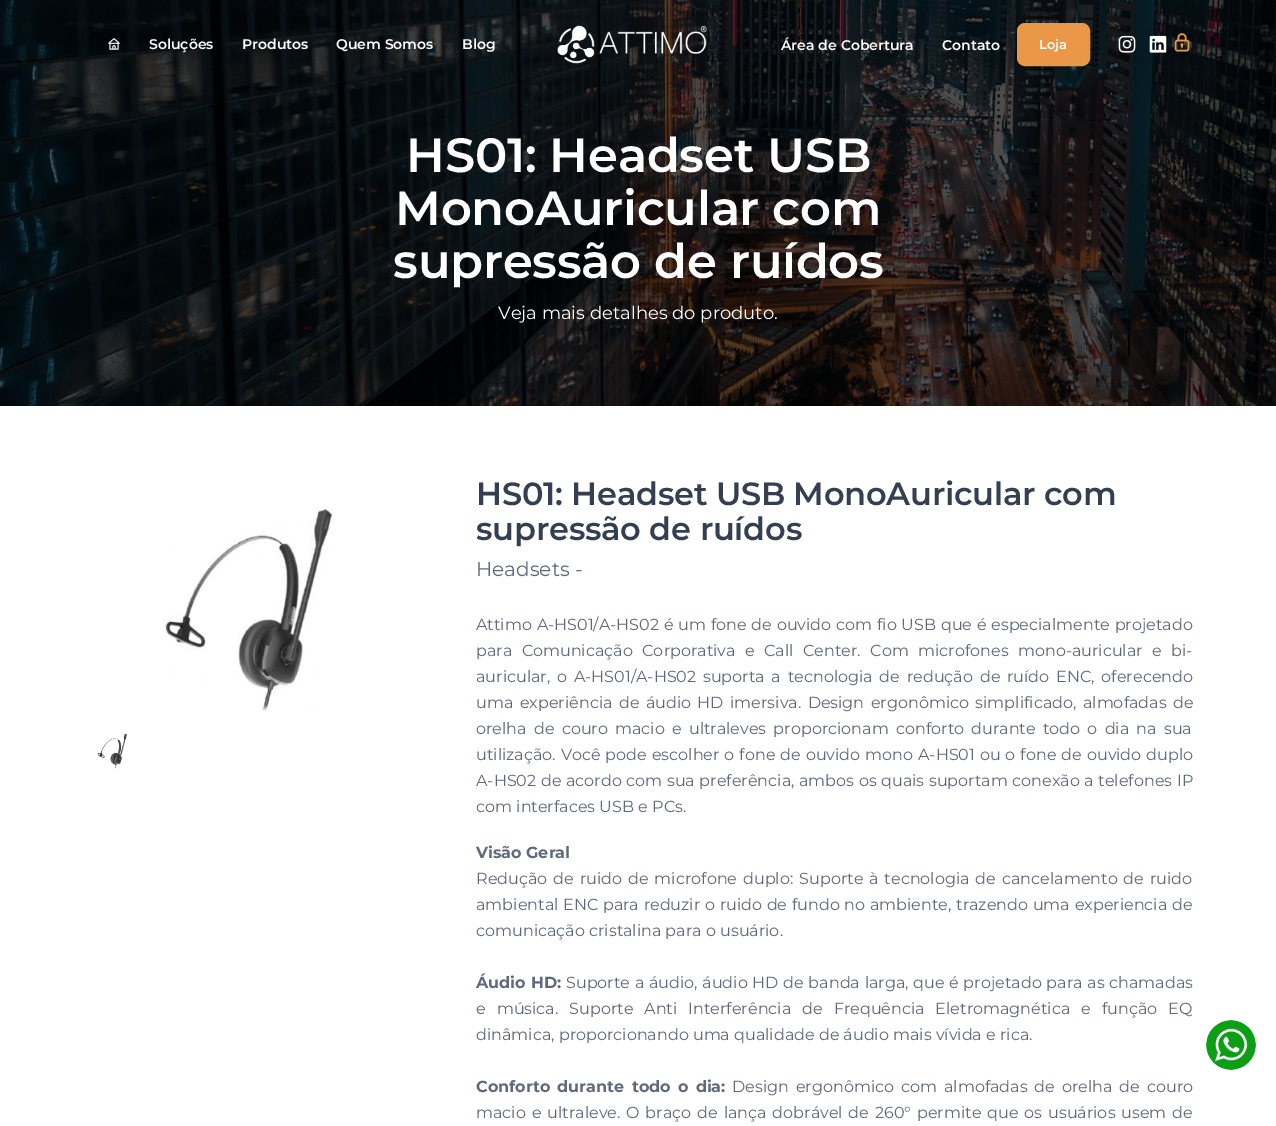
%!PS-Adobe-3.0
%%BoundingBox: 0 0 1276 1126
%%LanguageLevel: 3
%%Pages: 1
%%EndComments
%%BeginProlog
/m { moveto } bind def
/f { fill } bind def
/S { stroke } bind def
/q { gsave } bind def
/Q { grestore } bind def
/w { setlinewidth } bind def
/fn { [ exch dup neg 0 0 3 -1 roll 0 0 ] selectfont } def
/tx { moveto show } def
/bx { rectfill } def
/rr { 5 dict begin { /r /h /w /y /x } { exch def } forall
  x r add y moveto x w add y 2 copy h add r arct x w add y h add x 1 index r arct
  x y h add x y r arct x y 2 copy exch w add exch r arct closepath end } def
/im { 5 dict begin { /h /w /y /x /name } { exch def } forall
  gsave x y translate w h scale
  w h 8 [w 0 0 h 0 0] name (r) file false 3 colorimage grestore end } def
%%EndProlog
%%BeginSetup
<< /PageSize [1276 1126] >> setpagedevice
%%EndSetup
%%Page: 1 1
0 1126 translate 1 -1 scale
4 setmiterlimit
1 setgray
0 0 1276 1126 bx
(image5.raw) 0 0 1276 406 im
(image0.raw) 108 38 12 12 im
/Montserrat-SemiBold 14 fn
(Soluções) 149 49 tx
(Produtos) 242 49 tx
(Quem Somos) 336 49 tx
(Blog) 462 49 tx
(image1.raw) 557 25 150 39 im
(Área de Cobertura) 781 50 tx
(Contato) 942 50 tx
0.918 0.596 0.282 setrgbcolor
1018 24 71 41 7 rr q f Q
2 w
S
/Montserrat-SemiBold 13 fn
1 setgray
(Loja) 1039 49 tx
(image2.raw) 1118 35 18 18 im
(image3.raw) 1149 35 18 18 im
(image4.raw) 1174 33 16 19 im
/Montserrat-SemiBold 48 fn
406 172 m -0.2 0 (HS01: Headset USB) ashow
395 225 m -0.2 0 (MonoAuricular com) ashow
393 278 m -0.2 0 (supressão de ruídos) ashow
/Montserrat-Regular 18 fn
(Veja mais detalhes do produto.) 498 319 tx
(image6.raw) 162 508 173 203 im
(image7.raw) 97 733 30 36 im
/Montserrat-SemiBold 32 fn
0.204 0.247 0.322 setrgbcolor
476 505 m -0.2 0 (HS01: Headset USB MonoAuricular com) ashow
476 540 m -0.2 0 (supressão de ruídos) ashow
/Montserrat-Regular 20 fn
0.376 0.412 0.482 setrgbcolor
(Headsets -) 476 576 tx
/Montserrat-Regular 16 fn
476 630 m 0.6 0 32 (Attimo A-HS01/A-HS02 é um fone de ouvido com fio USB que é especialmente projetado) widthshow
476 656 m 5.25 0 32 (para Comunicação Corporativa e Call Center. Com microfones mono-auricular e bi-) widthshow
476 682 m 2.6 0 32 (auricular, o A-HS01/A-HS02 suporta a tecnologia de redução de ruído ENC, oferecendo) widthshow
476 708 m 2.25 0 32 (uma experiência de áudio HD imersiva. Design ergonômico simplificado, almofadas de) widthshow
476 734 m 3 0 32 (orelha de couro macio e ultraleves proporcionam conforto durante todo o dia na sua) widthshow
476 760 m 0.75 0 32 (utilização. Você pode escolher o fone de ouvido mono A-HS01 ou o fone de ouvido duplo) widthshow
476 786 m 0.4 0 32 (A-HS02 de acordo com sua preferência, ambos os quais suportam conexão a telefones IP) widthshow
(com interfaces USB e PCs.) 476 812 tx
/Montserrat-Bold 16 fn
(Visão Geral) 476 858 tx
/Montserrat-Regular 16 fn
476 884 m 1.75 0 32 (Redução de ruido de microfone duplo: Suporte à tecnologia de cancelamento de ruido) widthshow
476 910 m 0.5 0 32 (ambiental ENC para reduzir o ruido de fundo no ambiente, trazendo uma experiencia de) widthshow
(comunicação cristalina para o usuário.) 476 936 tx
/Montserrat-Bold 16 fn
476 988 m 0.5 0 32 (Áudio HD:) widthshow
/Montserrat-Regular 16 fn
566 988 m 0.5 0 32 (Suporte a áudio, áudio HD de banda larga, que é projetado para as chamadas) widthshow
476 1014 m 6.75 0 32 (e música. Suporte Anti Interferência de Frequência Eletromagnética e função EQ) widthshow
(dinâmica, proporcionando uma qualidade de áudio mais vívida e rica.) 476 1040 tx
/Montserrat-Bold 16 fn
476 1092 m 2.75 0 32 (Conforto durante todo o dia:) widthshow
/Montserrat-Regular 16 fn
732 1092 m 2.75 0 32 (Design ergonômico com almofadas de orelha de couro) widthshow
476 1118 m 1.7 0 32 (macio e ultraleve. O braço de lança dobrável de 260° permite que os usuários usem de) widthshow
(image8.raw) 1206 1020 50 50 im
showpage
%%EOF
